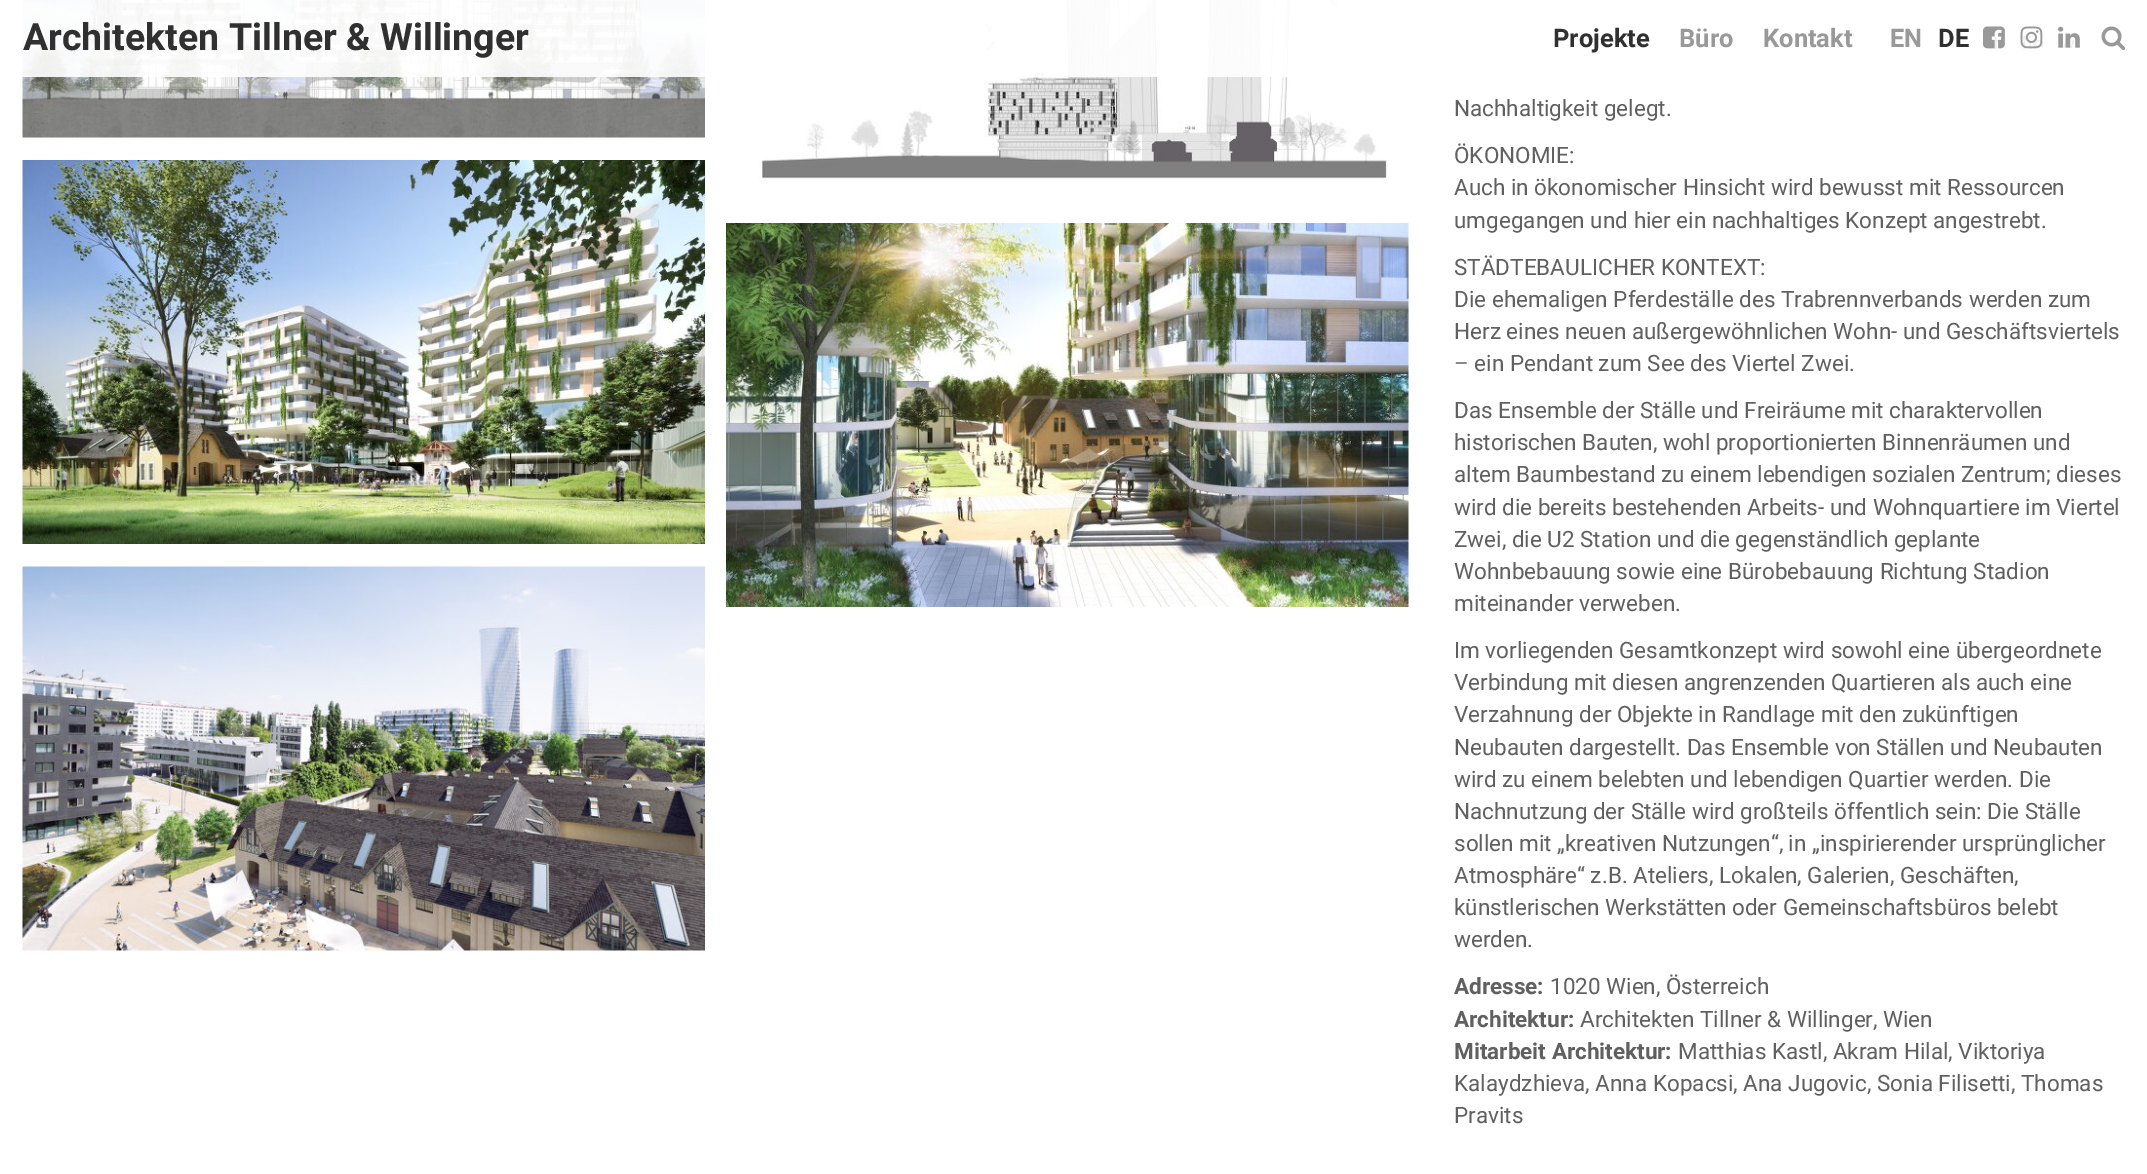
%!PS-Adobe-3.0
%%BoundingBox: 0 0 2147 1174
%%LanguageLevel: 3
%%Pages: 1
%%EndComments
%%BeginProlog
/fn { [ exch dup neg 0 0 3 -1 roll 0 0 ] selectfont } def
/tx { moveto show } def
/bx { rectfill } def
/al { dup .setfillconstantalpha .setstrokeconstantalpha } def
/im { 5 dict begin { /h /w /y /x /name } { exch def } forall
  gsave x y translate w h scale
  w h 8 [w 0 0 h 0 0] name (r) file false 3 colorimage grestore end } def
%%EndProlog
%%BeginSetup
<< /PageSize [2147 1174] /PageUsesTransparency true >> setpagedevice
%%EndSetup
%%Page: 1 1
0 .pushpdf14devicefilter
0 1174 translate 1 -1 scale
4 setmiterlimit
1 setgray
0 0 2147 1174 bx
(image4.raw) 22 0 683 138 im
(image5.raw) 758 0 631 183 im
0.9 al
22 0 1320 77 bx
/Roboto-Bold 37.5 fn
1 al
0.188 setgray
(Architekten Tillner & Willinger) 23 50 tx
/Roboto-Bold 25.5 fn
(Projekte) 1553 47 tx
0.6 setgray
(Büro) 1679 47 tx
(Kontakt) 1763 47 tx
(EN) 1890 47 tx
0.188 setgray
(DE) 1938 47 tx
(image0.raw) 1983 26 22 23 im
(image1.raw) 2020 26 23 23 im
(image2.raw) 2058 26 22 22 im
(image3.raw) 2101 26 25 25 im
(image6.raw) 22 160 683 384 im
(image7.raw) 726 223 683 384 im
(image8.raw) 22 566 683 385 im
/Roboto-Regular 22.5 fn
0.376 setgray
(Nachhaltigkeit gelegt.) 1454 116 tx
(ÖKONOMIE:) 1454 163 tx
(Auch in ökonomischer Hinsicht wird bewusst mit Ressourcen) 1454 195 tx
(umgegangen und hier ein nachhaltiges Konzept angestrebt.) 1454 228 tx
(STÄDTEBAULICHER KONTEXT:) 1454 275 tx
(Die ehemaligen Pferdeställe des Trabrennverbands werden zum) 1454 307 tx
(Herz eines neuen außergewöhnlichen Wohn- und Geschäftsviertels) 1454 339 tx
(– ein Pendant zum See des Viertel Zwei.) 1454 371 tx
(Das Ensemble der Ställe und Freiräume mit charaktervollen) 1454 418 tx
(historischen Bauten, wohl proportionierten Binnenräumen und) 1454 450 tx
(altem Baumbestand zu einem lebendigen sozialen Zentrum; dieses) 1454 482 tx
(wird die bereits bestehenden Arbeits- und Wohnquartiere im Viertel) 1454 515 tx
(Zwei, die U2 Station und die gegenständlich geplante) 1454 547 tx
(Wohnbebauung sowie eine Bürobebauung Richtung Stadion) 1454 579 tx
(miteinander verweben.) 1454 611 tx
(Im vorliegenden Gesamtkonzept wird sowohl eine übergeordnete) 1454 658 tx
(Verbindung mit diesen angrenzenden Quartieren als auch eine) 1454 690 tx
(Verzahnung der Objekte in Randlage mit den zukünftigen) 1454 722 tx
(Neubauten dargestellt. Das Ensemble von Ställen und Neubauten) 1454 755 tx
(wird zu einem belebten und lebendigen Quartier werden. Die) 1454 787 tx
(Nachnutzung der Ställe wird großteils öffentlich sein: Die Ställe) 1454 819 tx
(sollen mit „kreativen Nutzungen“, in „inspirierender ursprünglicher) 1454 851 tx
(Atmosphäre“ z.B. Ateliers, Lokalen, Galerien, Geschäften,) 1454 883 tx
(künstlerischen Werkstätten oder Gemeinschaftsbüros belebt) 1454 915 tx
(werden.) 1454 947 tx
/Roboto-Bold 22.5 fn
(Adresse:) 1454 994 tx
/Roboto-Regular 22.5 fn
(1020 Wien, Österreich) 1550 994 tx
/Roboto-Bold 22.5 fn
(Architektur:) 1454 1027 tx
/Roboto-Regular 22.5 fn
(Architekten Tillner & Willinger, Wien) 1580 1027 tx
/Roboto-Bold 22.5 fn
(Mitarbeit Architektur:) 1454 1059 tx
/Roboto-Regular 22.5 fn
(Matthias Kastl, Akram Hilal, Viktoriya) 1678 1059 tx
(Kalaydzhieva, Anna Kopacsi, Ana Jugovic, Sonia Filisetti, Thomas) 1454 1091 tx
(Pravits) 1454 1123 tx
.poppdf14devicefilter showpage
%%EOF
